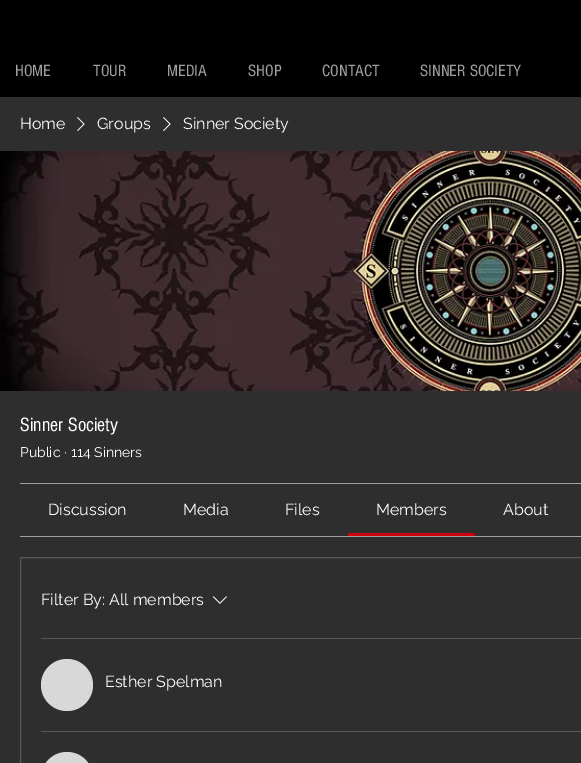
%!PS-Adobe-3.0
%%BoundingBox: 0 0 581 763
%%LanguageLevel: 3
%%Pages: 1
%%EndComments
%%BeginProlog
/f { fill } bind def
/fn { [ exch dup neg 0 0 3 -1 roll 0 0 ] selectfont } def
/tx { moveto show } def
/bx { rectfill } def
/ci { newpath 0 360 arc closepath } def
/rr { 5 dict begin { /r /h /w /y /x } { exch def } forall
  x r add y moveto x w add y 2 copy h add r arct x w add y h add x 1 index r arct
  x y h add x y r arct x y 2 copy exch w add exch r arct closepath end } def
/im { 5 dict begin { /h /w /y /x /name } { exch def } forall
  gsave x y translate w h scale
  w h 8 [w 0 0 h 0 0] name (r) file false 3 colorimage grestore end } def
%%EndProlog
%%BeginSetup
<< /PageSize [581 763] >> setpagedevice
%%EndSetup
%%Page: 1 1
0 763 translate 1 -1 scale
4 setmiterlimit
0 setgray
0 0 581 763 bx
/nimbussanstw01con-Regular 17 fn
0.627 0.627 0.624 setrgbcolor
(HOME) 15 76 tx
(TOUR) 93 76 tx
(MEDIA) 167 76 tx
(SHOP) 248 76 tx
(CONTACT) 322 76 tx
(SINNER SOCIETY) 420 76 tx
0.184 0.18 0.18 setrgbcolor
0 97 581 666 bx
/Raleway-Regular 16 fn
1 setgray
(Home) 20 129 tx
(image0.raw) 77 117 8 14 im
(Groups) 97 129 tx
(image0.raw) 163 117 8 14 im
(Sinner Society) 183 129 tx
(image1.raw) 0 151 581 240 im
/nimbussanstw01con-Regular 20 fn
(Sinner Society) 20 431 tx
/Raleway-Regular 14 fn
(Public) 20 457 tx
(·) 64 457 tx
(114 Sinners) 71 457 tx
0.627 0.627 0.624 setrgbcolor
20 483 561 1 bx
20 536 561 1 bx
/Raleway-Regular 16 fn
1 setgray
(Discussion) 48 515 tx
(Media) 183 515 tx
(Files) 285 515 tx
0.812 0 0.055 setrgbcolor
348 533 127 3 bx
1 setgray
(Members) 376 515 tx
(About) 503 515 tx
0.349 0.345 0.345 setrgbcolor
20.5 557.5 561 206 rectstroke
1 setgray
(Filter By: All members) 41 605 tx
(image2.raw) 212 596 15 8 im
0.349 0.345 0.345 setrgbcolor
41 638 540 1 bx
0.847 setgray
67 685 26 ci f
1 setgray
(Esther Spelman) 105 687 tx
0.349 0.345 0.345 setrgbcolor
41 731 540 1 bx
0.847 setgray
41 752 52 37 26 rr f
showpage
%%EOF
